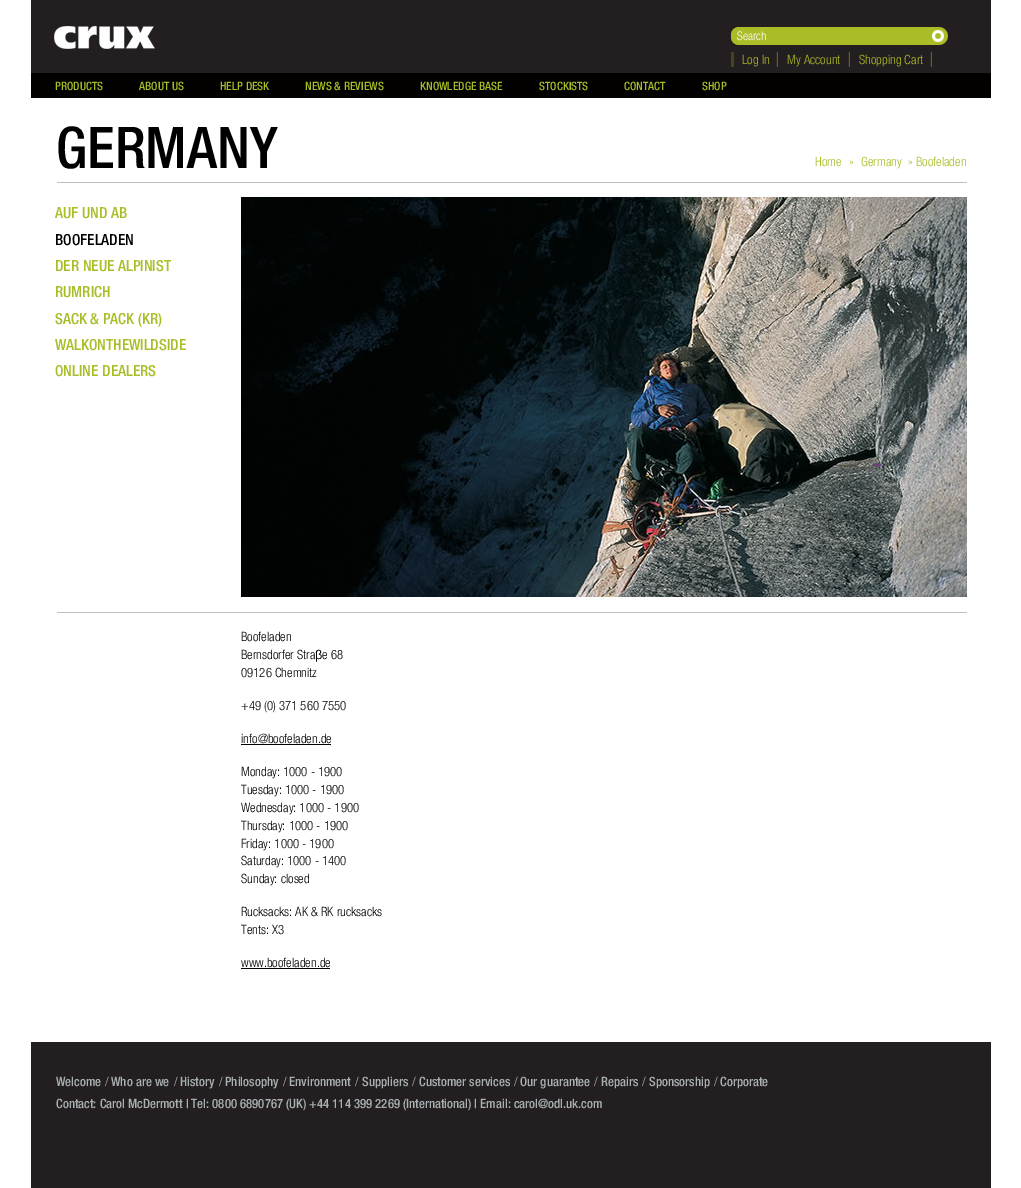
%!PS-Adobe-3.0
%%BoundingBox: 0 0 1021 1188
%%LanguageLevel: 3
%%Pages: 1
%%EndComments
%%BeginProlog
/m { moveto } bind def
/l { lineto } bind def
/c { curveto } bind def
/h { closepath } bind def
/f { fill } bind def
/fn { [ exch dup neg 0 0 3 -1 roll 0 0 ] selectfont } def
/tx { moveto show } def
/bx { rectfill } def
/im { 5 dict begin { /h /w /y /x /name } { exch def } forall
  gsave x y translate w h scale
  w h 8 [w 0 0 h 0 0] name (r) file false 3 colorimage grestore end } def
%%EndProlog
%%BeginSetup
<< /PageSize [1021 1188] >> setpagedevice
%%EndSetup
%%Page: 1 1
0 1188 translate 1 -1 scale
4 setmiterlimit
1 setgray
0 0 1021 1188 bx
0.137 0.122 0.125 setrgbcolor
31 0 960 73 bx
(image0.raw) 54 26 101 23 im
0.667 0.741 0.149 setrgbcolor
739 27 m 931 27 l 931 45 l 739 45 l 734.5 45 731 41.5 731 37 c 731 35 l 731 30.5 734.5 27 739 27 c h f
/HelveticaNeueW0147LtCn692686-Regular 12 fn
1 setgray
(Search) 737 40 tx
(image1.raw) 931 27 17 18 im
0.267 0.275 0.098 setrgbcolor
731 52 3 15 bx
/HelveticaNeueW0147LtCn692686-Regular 12.8 fn
0.667 0.741 0.149 setrgbcolor
(Log In) 742 64 tx
(image2.raw) 776 52 2 15 im
(My Account) 787 64 tx
(image2.raw) 848 52 2 15 im
(Shopping Cart) 859 64 tx
(image2.raw) 930 52 2 15 im
0.012 0 0 setrgbcolor
31 73 960 25 bx
/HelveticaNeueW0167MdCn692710-Regular 11.5 fn
0.667 0.741 0.149 setrgbcolor
(PRODUCTS) 55 90 tx
(ABOUT US) 139 90 tx
(HELP DESK) 220 90 tx
(NEWS & REVIEWS) 305 90 tx
(KNOWLEDGE BASE) 420 90 tx
(STOCKISTS) 539 90 tx
(CONTACT) 624 90 tx
(SHOP) 702 90 tx
/HelveticaNeueW0167MdCn692710-Regular 57.5 fn
0 setgray
(GERMANY) 56 168 tx
/HelveticaNeueW0167MdCn692710-Regular 15.25 fn
0.667 0.741 0.149 setrgbcolor
(AUF UND AB) 55 218 tx
0 setgray
(BOOFELADEN) 55 245 tx
0.667 0.741 0.149 setrgbcolor
(DER NEUE ALPINIST) 55 271 tx
(RUMRICH) 55 297 tx
(SACK & PACK \(KR\)) 55 324 tx
(WALKONTHEWILDSIDE) 55 350 tx
(ONLINE DEALERS) 55 376 tx
/HelveticaNeueW0147LtCn692686-Regular 12.8 fn
(Home) 815 166 tx
(») 849 166 tx
(Germany) 861 166 tx
(» Boofeladen) 908 166 tx
0.737 0.745 0.753 setrgbcolor
57 182 910 1 bx
57 612 910 1 bx
(image3.raw) 241 197 726 400 im
0 setgray
(Boofeladen) 241 641 tx
(Bernsdorfer Stra) 241 659 tx
/LiberationSans-Regular 12.8 fn
(β) 315 659 tx
/HelveticaNeueW0147LtCn692686-Regular 12.8 fn
(e 68) 322 659 tx
(09126 Chemnitz) 241 677 tx
(+49 \(0\) 371 560 7550) 241 710 tx
(info@boofeladen.de) 241 743 tx
241 744 90 1 bx
(Monday: 1000 - 1900) 241 776 tx
(Tuesday: 1000 - 1900) 241 794 tx
(Wednesday: 1000 - 1900) 241 812 tx
(Thursday: 1000 - 1900) 241 830 tx
(Friday: 1000 - 1900) 241 848 tx
(Saturday: 1000 - 1400) 241 865 tx
(Sunday: closed) 241 883 tx
(Rucksacks: AK & RK rucksacks) 241 916 tx
(Tents: X3) 241 934 tx
(www.boofeladen.de) 241 967 tx
241 968 89 1 bx
0.137 0.122 0.125 setrgbcolor
31 1042 960 146 bx
/HelveticaNeueW0167MdCn692710-Regular 12.8 fn
0.663 0.686 0.698 setrgbcolor
(Welcome) 56 1086 tx
/HelveticaNeueW0147LtCn692686-Regular 12.8 fn
(/) 105 1086 tx
/HelveticaNeueW0167MdCn692710-Regular 12.8 fn
(Who are we) 111 1086 tx
/HelveticaNeueW0147LtCn692686-Regular 12.8 fn
(/) 174 1086 tx
/HelveticaNeueW0167MdCn692710-Regular 12.8 fn
(History) 180 1086 tx
/HelveticaNeueW0147LtCn692686-Regular 12.8 fn
(/) 219 1086 tx
/HelveticaNeueW0167MdCn692710-Regular 12.8 fn
(Philosophy) 225 1086 tx
/HelveticaNeueW0147LtCn692686-Regular 12.8 fn
(/) 283 1086 tx
/HelveticaNeueW0167MdCn692710-Regular 12.8 fn
(Environment) 289 1086 tx
/HelveticaNeueW0147LtCn692686-Regular 12.8 fn
(/) 355 1086 tx
/HelveticaNeueW0167MdCn692710-Regular 12.8 fn
(Suppliers) 362 1086 tx
/HelveticaNeueW0147LtCn692686-Regular 12.8 fn
(/) 412 1086 tx
/HelveticaNeueW0167MdCn692710-Regular 12.8 fn
(Customer services) 419 1086 tx
/HelveticaNeueW0147LtCn692686-Regular 12.8 fn
(/) 514 1086 tx
/HelveticaNeueW0167MdCn692710-Regular 12.8 fn
(Our guarantee) 520 1086 tx
/HelveticaNeueW0147LtCn692686-Regular 12.8 fn
(/) 594 1086 tx
/HelveticaNeueW0167MdCn692710-Regular 12.8 fn
(Repairs) 601 1086 tx
/HelveticaNeueW0147LtCn692686-Regular 12.8 fn
(/) 642 1086 tx
/HelveticaNeueW0167MdCn692710-Regular 12.8 fn
(Sponsorship) 649 1086 tx
/HelveticaNeueW0147LtCn692686-Regular 12.8 fn
(/) 714 1086 tx
/HelveticaNeueW0167MdCn692710-Regular 12.8 fn
(Corporate) 720 1086 tx
(Contact: Carol McDermott | Tel: 0800 6890767 \(UK\) +44 114 399 2269 \(International\) | Email: carol@odl.uk.com) 56 1108 tx
showpage
%%EOF
